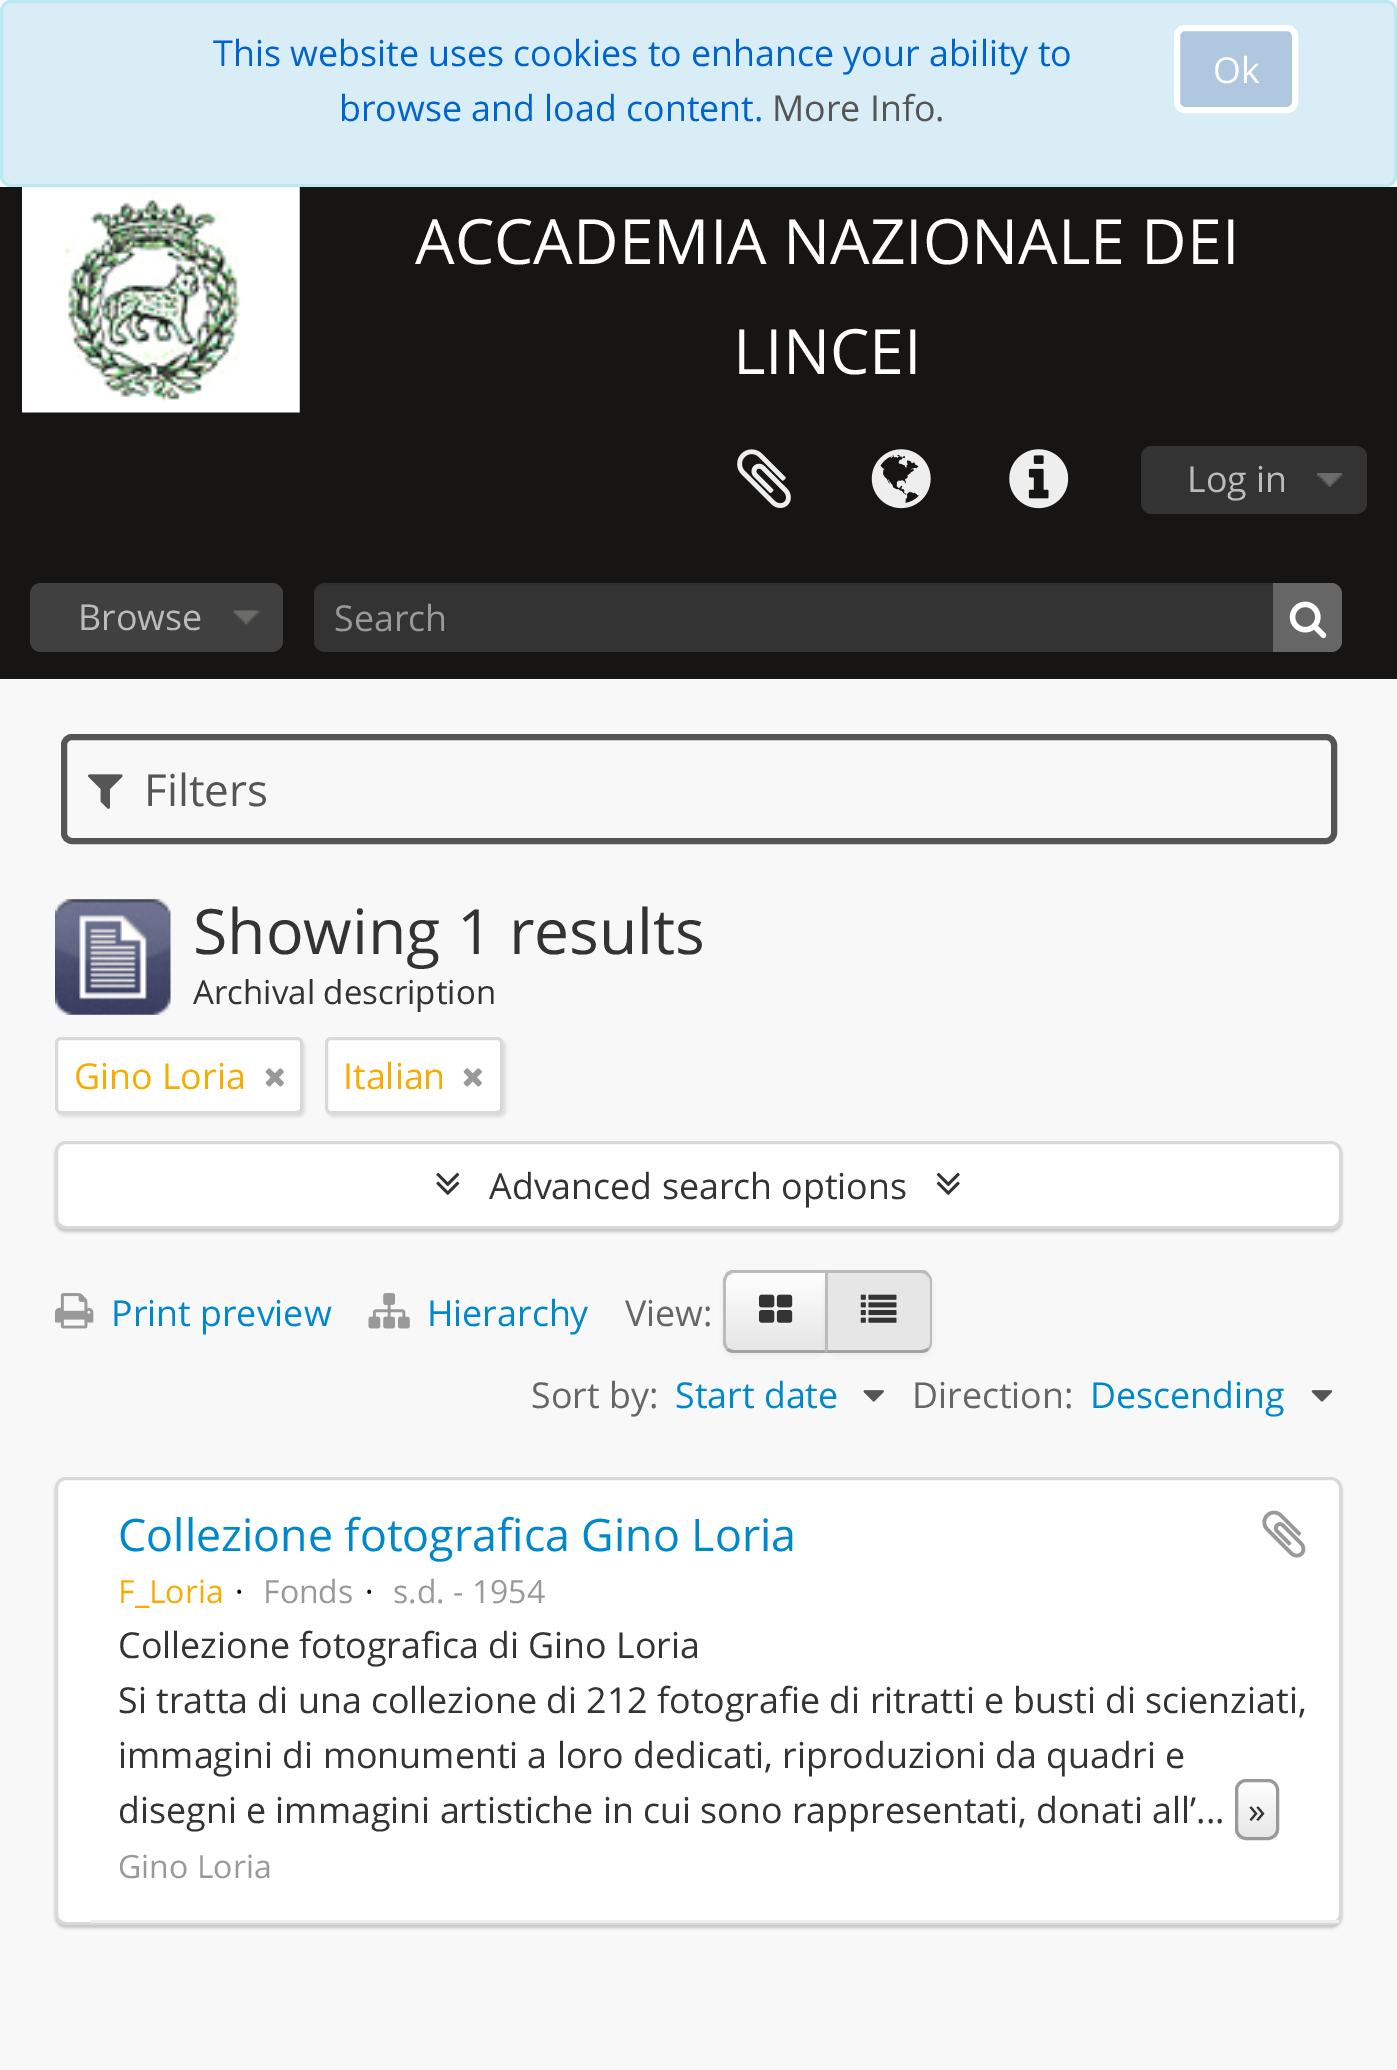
%!PS-Adobe-3.0
%%BoundingBox: 0 0 1397 2070
%%LanguageLevel: 3
%%Pages: 1
%%EndComments
%%BeginProlog
/m { moveto } bind def
/l { lineto } bind def
/c { curveto } bind def
/h { closepath } bind def
/f { fill } bind def
/S { stroke } bind def
/q { gsave } bind def
/Q { grestore } bind def
/w { setlinewidth } bind def
/fn { [ exch dup neg 0 0 3 -1 roll 0 0 ] selectfont } def
/tx { moveto show } def
/bx { rectfill } def
/al { dup .setfillconstantalpha .setstrokeconstantalpha } def
/rr { 5 dict begin { /r /h /w /y /x } { exch def } forall
  x r add y moveto x w add y 2 copy h add r arct x w add y h add x 1 index r arct
  x y h add x y r arct x y 2 copy exch w add exch r arct closepath end } def
/sh { 12 dict begin { /a /b /q /h /w /y /x } { exch def } forall gsave /was 0 def
  9 -2 -9 { dup b mul 4 div /e exch def 1 sub .425 mul 2.718 exch exp 1 add a .99 .min exch div /now exch def
    1 1 now sub 1 was sub div sub al /was now def
    w h .min e 2 mul add 0 gt { x e sub y e sub w e 2 mul add h e 2 mul add
      q e add b .6 mul add w h .min 2 div e add .min 0 .max rr fill } if } for grestore end } def
/im { 5 dict begin { /h /w /y /x /name } { exch def } forall
  gsave x y translate w h scale
  w h 8 [w 0 0 h 0 0] name (r) file false 3 colorimage grestore end } def
%%EndProlog
%%BeginSetup
<< /PageSize [1397 2070] /PageUsesTransparency true >> setpagedevice
%%EndSetup
%%Page: 1 1
0 .pushpdf14devicefilter
0 2070 translate 1 -1 scale
4 setmiterlimit
0.973 setgray
0 0 1397 2070 bx
0.851 0.929 0.969 setrgbcolor
1.5 1.5 1394 184 9.5 rr q f Q
0.737 0.91 0.945 setrgbcolor
3 w
S
/OpenSans-Regular 35.75 fn
0 0.392 0.804 setrgbcolor
(This website uses cookies to enhance your ability to) 213 66 tx
(browse and load content.) 339 121 tx
0.333 setgray
(More Info.) 772 121 tx
0.686 0.784 0.875 setrgbcolor
1177 28 118 82 8 rr q f Q
1 setgray
6 w
S
(Ok) 1213 83 tx
0.086 0.082 0.078 setrgbcolor
0 187 1397 492 bx
(image0.raw) 22 187 278 226 im
/OpenSans-Regular 62.5 fn
1 setgray
(ACCADEMIA NAZIONALE DEI) 415 264 tx
(LINCEI) 733 374 tx
(image1.raw) 737 449 54 59 im
(image2.raw) 871 449 60 60 im
(image3.raw) 1009 449 60 60 im
0.2 setgray
1141 446 226 68 11 rr f
(image4.raw) 1317 473 26 14 im
/OpenSans-Regular 35.75 fn
0.733 setgray
(Log in) 1187 492 tx
0.251 setgray
30 583 253 69 11 rr f
(image5.raw) 233 610 27 15 im
0.733 setgray
(Browse) 78 630 tx
0.2 setgray
314 583 1028 69 11 rr f
0.07 al
0 setgray
324 586 m 1331 586 l 1337 586 1342 591 1342 597 c 1342 594 l 1342 588 1337 583 1331 583 c 325 583 l 319 583 314 588 314 594 c 314 597 l 314 591 318 586 324 586 c h f
1 al
0.6 setgray
(Search) 334 631 tx
0.4 setgray
1273 583 m 1331 583 l 1337 583 1342 588 1342 594 c 1342 641 l 1342 647 1337 652 1331 652 c 1273 652 l h f
(image6.raw) 1289 601 38 38 im
0.333 setgray
64 737 1270 104 8 rr S
(image7.raw) 88 774 35 35 im
/OpenSans-Regular 44 fn
(Filters) 144 806 tx
(image8.raw) 55 899 116 116 im
/OpenSans-Regular 62.5 fn
0.2 setgray
(Showing 1 results) 193 954 tx
/OpenSans-Regular 33 fn
(Archival description) 193 1004 tx
0 setgray
58 1040 247 77 6 1.5 0.1 sh
1 setgray
56.5 1038.5 245 74 4.5 rr q f Q
0.851 setgray
3 w
S
/OpenSans-Regular 35.75 fn
0.965 0.675 0 setrgbcolor
(Gino Loria) 74 1089 tx
(image9.raw) 265 1068 19 19 im
0 setgray
327 1040 179 77 6 1.5 0.1 sh
1 setgray
326.5 1038.5 175 74 4.5 rr q f Q
0.851 setgray
S
0.965 0.675 0 setrgbcolor
(Italian) 343 1089 tx
(image9.raw) 463 1068 19 19 im
0 setgray
55 1144 1287 88 11 1.5 0.2 sh
1 setgray
56.5 1142.5 1284 85 9.5 rr q f Q
0.851 setgray
S
(image10.raw) 436 1172 24 23 im
0.2 setgray
(Advanced search options) 489 1199 tx
(image11.raw) 936 1172 24 23 im
(image12.raw) 55 1293 39 36 im
0 0.533 0.8 setrgbcolor
(Print preview) 111 1326 tx
(image13.raw) 368 1293 42 36 im
(Hierarchy) 427 1326 tx
0.4 setgray
(View:) 625 1326 tx
0 setgray
723 1273 105 83 11 3 0.05 sh
q
734 1271 m 828 1271 l 828 1353 l 734 1353 l 728 1353 723 1348 723 1342 c 723 1282 l 723 1276 728 1271 734 1271 c h clip newpath
q 723 1273 m 825 1273 l 825 1350 l 723 1350 l h clip newpath
<< /ShadingType 2 /ColorSpace /DeviceRGB /Coords [776 1273 776 1350] /Extend [true true] /Function << /FunctionType 2 /Domain [0 1] /C0 [1 1 1] /C1 [0.902 0.902 0.902] /N 1 >> >> shfill Q
Q
0.733 setgray
734 1273 m 732 1273 730 1274 728 1276 c 726 1273 l 727 1272 729 1271 731 1270 c 828 1270 l 825 1273 l h f
0.635 setgray
828 1353 m 825 1350 l 734 1350 l 732 1350 730 1349 728 1348 c 726 1350 l 728 1352 731 1353 734 1353 c h f
0.733 setgray
723 1279 m 724 1277 725 1275 726 1273 c 728 1276 l 727 1277 726 1280 726 1282 c 726 1342 l 726 1344 727 1346 728 1348 c 726 1350 l 725 1348 724 1346 723 1344 c h f
(image14.raw) 759 1294 34 29 im
0 setgray
825 1273 107 83 11 3 0.05 sh
0.902 setgray
825 1271 m 921 1271 l 927 1271 932 1276 932 1282 c 932 1342 l 932 1348 927 1353 921 1353 c 825 1353 l h f
0.733 setgray
828 1273 m 828 1274 l 825 1270 l 924 1270 l 926 1271 928 1272 929 1274 c 927 1276 l 926 1274 923 1273 921 1273 c h f
929 1274 m 931 1276 932 1279 932 1282 c 932 1342 l 932 1345 931 1348 929 1350 c 927 1348 l 929 1347 930 1345 930 1342 c 930 1282 l 930 1279 929 1277 927 1276 c h f
0.635 setgray
921 1353 m 924 1353 927 1352 929 1350 c 927 1348 l 926 1349 923 1350 921 1350 c 828 1350 l 825 1353 l h f
0.733 setgray
825 1353 m 828 1350 l 828 1274 l 825 1270 l h f
(image15.raw) 860 1294 37 29 im
0.4 setgray
(Sort by:) 531 1408 tx
0 0.533 0.8 setrgbcolor
(Start date) 675 1408 tx
(image16.raw) 863 1390 21 12 im
0.4 setgray
(Direction:) 912 1408 tx
0 0.533 0.8 setrgbcolor
(Descending) 1090 1408 tx
(image17.raw) 1311 1390 22 12 im
0 setgray
55 1480 1287 448 11 1.5 0.2 sh
1 setgray
56.5 1478.5 1284 445 9.5 rr q f Q
0.851 setgray
S
0.933 setgray
91 1920 1248 3 bx
/OpenSans-Regular 44.75 fn
0 0.533 0.8 setrgbcolor
(Collezione fotografica Gino Loria) 118 1551 tx
(image18.raw) 1262 1510 44 48 im
/OpenSans-Regular 32 fn
0.965 0.675 0 setrgbcolor
(F_Loria) 118 1603 tx
0 setgray
(·) 235 1603 tx
0.6 setgray
(Fonds) 263 1603 tx
0 setgray
(·) 365 1603 tx
0.6 setgray
(s.d. - 1954) 393 1603 tx
/OpenSans-Regular 35.75 fn
0.2 setgray
(Collezione fotografica di Gino Loria) 118 1658 tx
(Si tratta di una collezione di 212 fotografie di ritratti e busti di scienziati,) 118 1713 tx
(immagini di monumenti a loro dedicati, riproduzioni da quadri e) 118 1768 tx
(disegni e immagini artistiche in cui sono rappresentati, donati all’...) 118 1823 tx
q
1235 1779 44 61 11 rr clip newpath
q 1235 1782 m 1279 1782 l 1279 1837 l 1235 1837 l h clip newpath
<< /ShadingType 2 /ColorSpace /DeviceRGB /Coords [1257 1782 1257 1837] /Extend [true true] /Function << /FunctionType 2 /Domain [0 1] /C0 [1 1 1] /C1 [0.902 0.902 0.902] /N 1 >> >> shfill Q
Q
0.6 setgray
1236.5 1780.5 41 58 9.5 rr S
0.2 setgray
(») 1248 1823 tx
/OpenSans-Regular 32 fn
0.6 setgray
(Gino Loria) 118 1878 tx
.poppdf14devicefilter showpage
%%EOF
